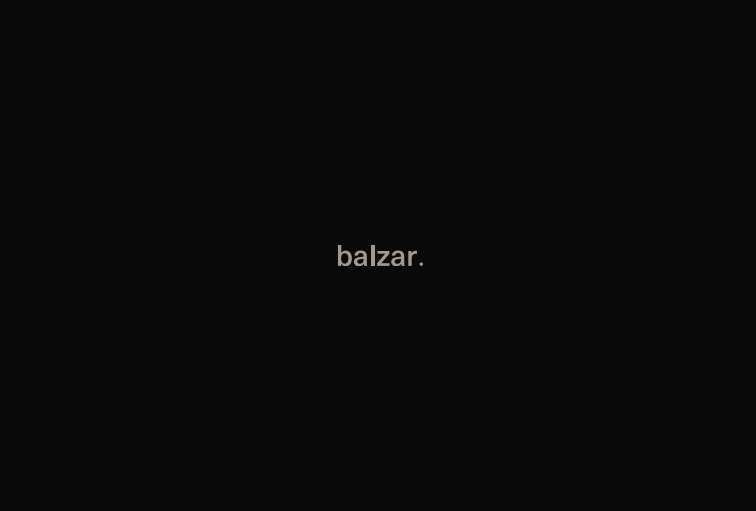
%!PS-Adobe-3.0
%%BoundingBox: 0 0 756 511
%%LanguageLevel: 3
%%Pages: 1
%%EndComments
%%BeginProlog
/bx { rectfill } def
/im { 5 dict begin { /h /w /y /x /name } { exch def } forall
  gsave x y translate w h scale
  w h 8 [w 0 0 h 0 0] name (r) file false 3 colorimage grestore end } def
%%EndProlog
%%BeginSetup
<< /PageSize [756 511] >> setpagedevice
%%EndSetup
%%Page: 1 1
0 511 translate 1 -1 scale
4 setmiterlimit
0.039 setgray
0 0 756 511 bx
(image0.raw) 337 245 86 21 im
showpage
%%EOF
